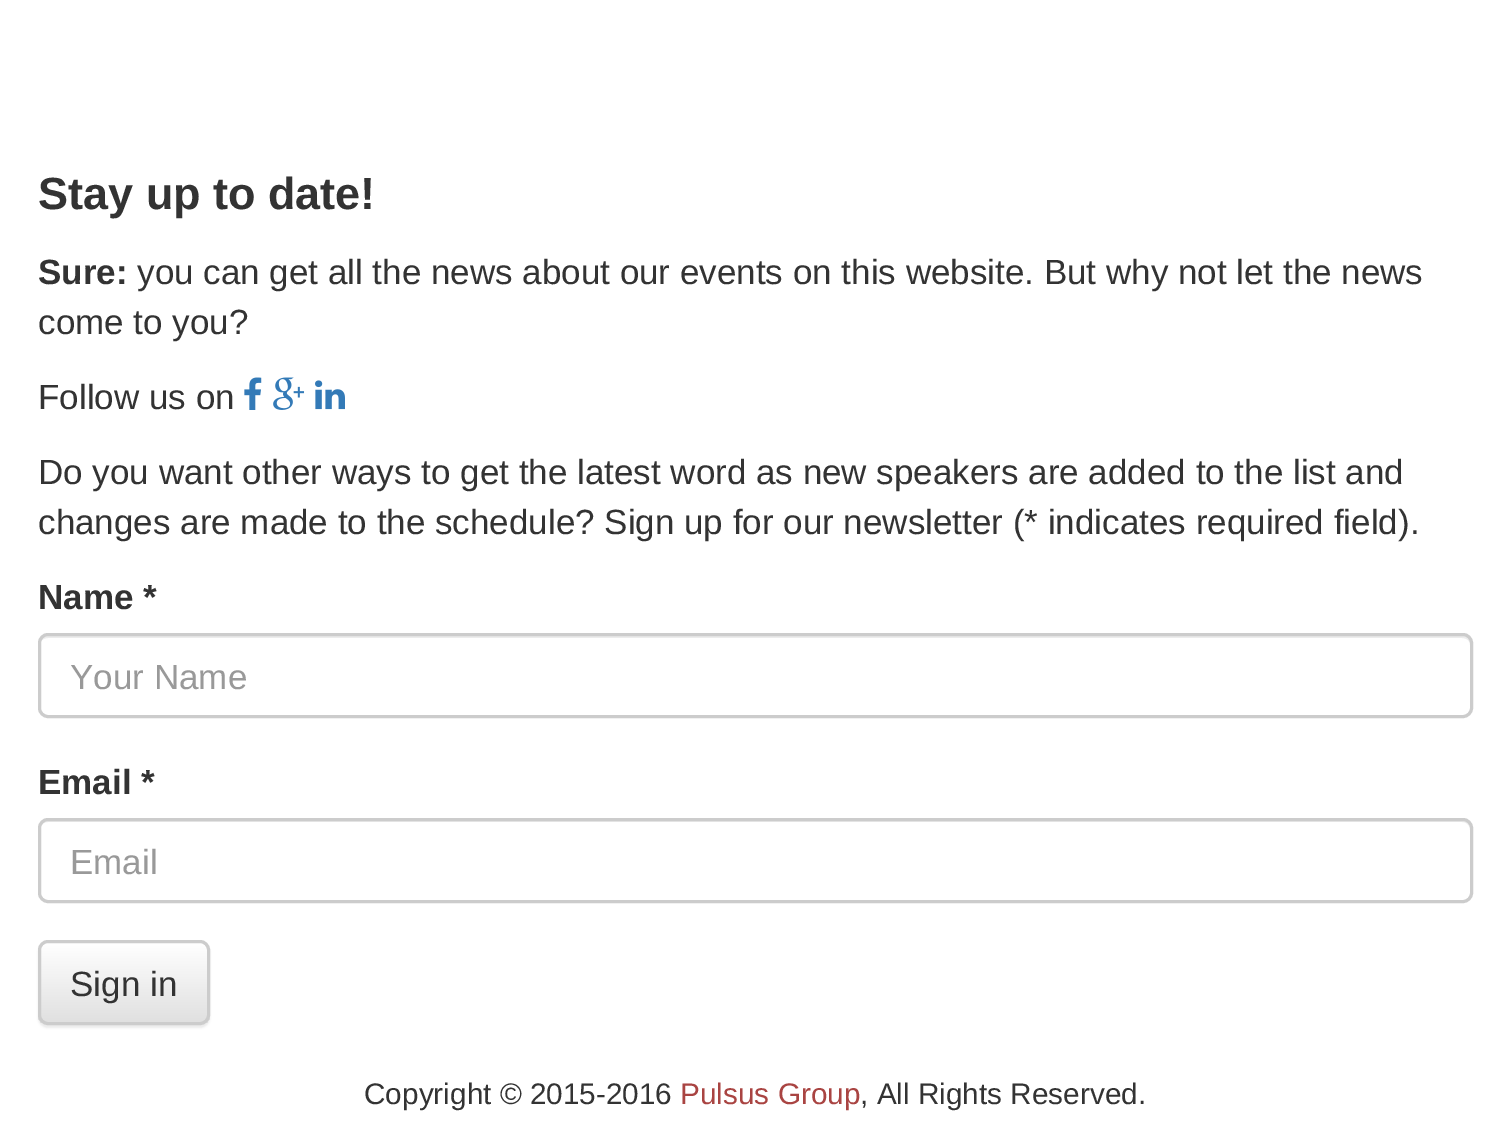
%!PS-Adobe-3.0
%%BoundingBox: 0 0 1508 1140
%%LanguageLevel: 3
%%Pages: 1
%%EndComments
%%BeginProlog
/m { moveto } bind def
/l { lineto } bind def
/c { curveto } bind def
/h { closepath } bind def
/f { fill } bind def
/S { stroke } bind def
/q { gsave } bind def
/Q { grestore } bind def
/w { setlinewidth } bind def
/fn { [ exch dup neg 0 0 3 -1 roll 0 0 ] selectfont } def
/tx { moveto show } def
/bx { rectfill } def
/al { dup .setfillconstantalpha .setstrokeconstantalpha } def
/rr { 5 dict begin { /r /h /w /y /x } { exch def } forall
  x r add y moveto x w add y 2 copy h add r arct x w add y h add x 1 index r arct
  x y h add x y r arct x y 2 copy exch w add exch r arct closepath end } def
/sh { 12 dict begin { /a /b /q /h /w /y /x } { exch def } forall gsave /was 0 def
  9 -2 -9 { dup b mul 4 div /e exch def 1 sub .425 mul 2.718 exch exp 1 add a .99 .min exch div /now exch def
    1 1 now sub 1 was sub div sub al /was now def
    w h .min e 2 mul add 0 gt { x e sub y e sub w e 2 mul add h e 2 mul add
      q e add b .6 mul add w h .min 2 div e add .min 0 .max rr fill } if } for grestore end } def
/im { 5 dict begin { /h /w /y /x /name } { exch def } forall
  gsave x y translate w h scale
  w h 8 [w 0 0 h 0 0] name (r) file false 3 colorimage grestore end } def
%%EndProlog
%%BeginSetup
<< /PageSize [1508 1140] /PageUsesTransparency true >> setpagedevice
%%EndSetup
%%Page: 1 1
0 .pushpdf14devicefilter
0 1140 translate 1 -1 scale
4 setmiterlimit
1 setgray
0 0 1508 1140 bx
/LiberationSans-Bold 45 fn
0.2 setgray
(Stay up to date!) 38 209 tx
/LiberationSans-Bold 35 fn
(Sure:) 38 284 tx
/LiberationSans-Regular 35 fn
(you can get all the news about our events on this website. But why not let the news) 137 284 tx
(come to you?) 38 334 tx
(Follow us on) 38 409 tx
(image0.raw) 244 377 18 33 im
(image1.raw) 273 377 32 33 im
(image2.raw) 315 380 30 30 im
(Do you want other ways to get the latest word as new speakers are added to the list and) 38 484 tx
(changes are made to the schedule? Sign up for our newsletter \(* indicates required field\).) 38 534 tx
/LiberationSans-Bold 35 fn
(Name *) 38 609 tx
0.925 setgray
48 638 m 1462 638 l 1467 638 1470 641 1470 645 c 1470 643 l 1470 639 1466 635 1462 635 c 48 635 l 44 635 40 639 40 643 c 40 645 l 40 641 43 638 48 638 c h f
0.8 setgray
3 w
39.5 634.5 1432 82 8.5 rr S
/LiberationSans-Regular 35 fn
0.6 setgray
(Your Name) 70 689 tx
/LiberationSans-Bold 35 fn
0.2 setgray
(Email *) 38 794 tx
0.925 setgray
48 822 m 1462 822 l 1467 822 1470 826 1470 830 c 1470 828 l 1470 824 1466 820 1462 820 c 48 820 l 44 820 40 824 40 828 c 40 830 l 40 826 43 822 48 822 c h f
0.8 setgray
39.5 819.5 1432 82 8.5 rr S
/LiberationSans-Regular 35 fn
0.6 setgray
(Email) 70 874 tx
0 setgray
38 943 172 85 10 1 0.07 sh
q
38 940 172 85 10 rr clip newpath
q 38 943 m 210 943 l 210 1023 l 38 1023 l h clip newpath
<< /ShadingType 2 /ColorSpace /DeviceRGB /Coords [124 943 124 1023] /Extend [true true] /Function << /FunctionType 2 /Domain [0 1] /C0 [1 1 1] /C1 [0.878 0.878 0.878] /N 1 >> >> shfill Q
Q
0.8 setgray
39.5 941.5 169 82 8.5 rr S
0.2 setgray
(Sign in) 70 996 tx
/LiberationSans-Regular 29.75 fn
(Copyright © 2015-2016) 364 1104 tx
0.663 0.267 0.259 setrgbcolor
(Pulsus Group) 680 1104 tx
0.2 setgray
(, All Rights Reserved.) 860 1104 tx
.poppdf14devicefilter showpage
%%EOF
